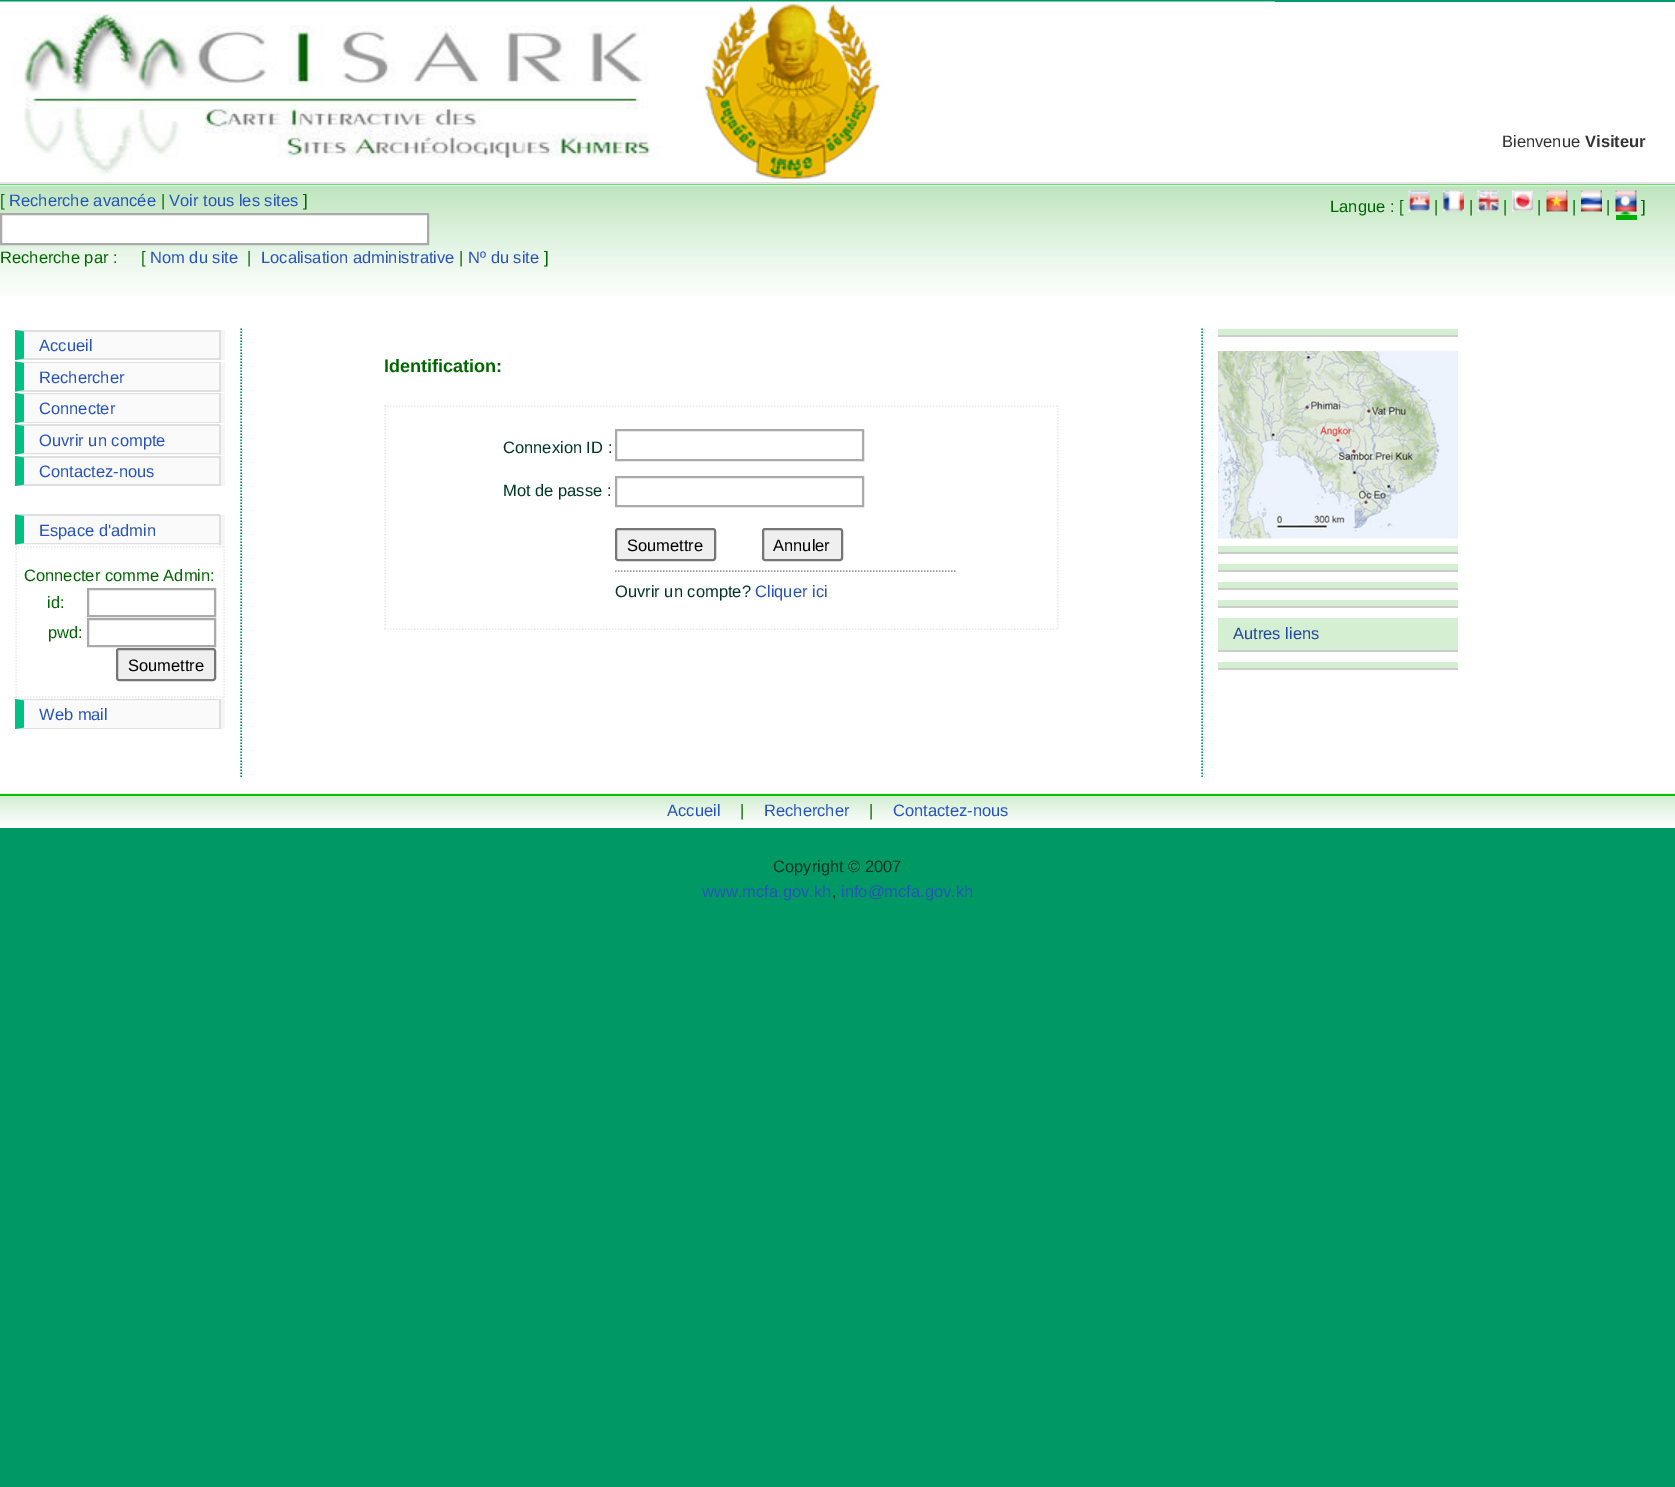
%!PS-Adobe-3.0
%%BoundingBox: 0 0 1675 1487
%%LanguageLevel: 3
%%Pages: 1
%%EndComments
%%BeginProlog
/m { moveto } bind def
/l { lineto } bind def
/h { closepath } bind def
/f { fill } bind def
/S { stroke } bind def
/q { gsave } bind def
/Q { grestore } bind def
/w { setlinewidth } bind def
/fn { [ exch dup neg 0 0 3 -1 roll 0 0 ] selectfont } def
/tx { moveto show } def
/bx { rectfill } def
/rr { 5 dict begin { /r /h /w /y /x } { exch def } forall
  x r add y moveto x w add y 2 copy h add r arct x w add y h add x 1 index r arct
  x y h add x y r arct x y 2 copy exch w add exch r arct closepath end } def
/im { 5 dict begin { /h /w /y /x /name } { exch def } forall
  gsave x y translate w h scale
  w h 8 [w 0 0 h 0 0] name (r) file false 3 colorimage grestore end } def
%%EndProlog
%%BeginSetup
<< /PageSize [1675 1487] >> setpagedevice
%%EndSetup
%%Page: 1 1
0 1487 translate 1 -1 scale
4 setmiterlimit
0 0.6 0.4 setrgbcolor
0 0 1675 1487 bx
1 setgray
0 2 1675 826 bx
(image0.raw) 0 1 1275 178 im
/LiberationSans-Regular 16.5 fn
0.2 setgray
(Bienvenue) 1502 147 tx
/LiberationSans-Bold 16.5 fn
(Visiteur) 1585 147 tx
(image1.raw) 0 184 1675 112 im
0.898 setgray
0 182 1675 2 bx
/LiberationSans-Regular 16.5 fn
0 0.4 0 setrgbcolor
([) 0 206 tx
0.157 0.329 0.725 setrgbcolor
(Recherche avancée) 9 206 tx
0 0.4 0 setrgbcolor
(|) 161 206 tx
0.157 0.329 0.725 setrgbcolor
(Voir tous les sites) 169 206 tx
0 0.4 0 setrgbcolor
(]) 303 206 tx
1 setgray
1 214 m 428 214 l 428 244 l 1 244 l h q f Q
0.667 setgray
2 w
S
0 0.4 0 setrgbcolor
(Recherche par :) 0 263 tx
([) 141 263 tx
0.157 0.329 0.725 setrgbcolor
(Nom du site) 150 263 tx
0 0.4 0 setrgbcolor
(|) 247 263 tx
0.157 0.329 0.725 setrgbcolor
(Localisation administrative) 261 263 tx
0 0.4 0 setrgbcolor
(|) 459 263 tx
0.157 0.329 0.725 setrgbcolor
(Nº du site) 468 263 tx
0 0.4 0 setrgbcolor
(]) 544 263 tx
(Langue : [) 1330 212 tx
(image2.raw) 1408 190 22 22 im
(|) 1434 212 tx
(image3.raw) 1443 190 21 22 im
(|) 1469 212 tx
(image4.raw) 1477 190 22 22 im
(|) 1503 212 tx
(image5.raw) 1512 190 21 22 im
(|) 1537 212 tx
(image6.raw) 1546 190 22 22 im
(|) 1572 212 tx
(image7.raw) 1581 190 21 22 im
(|) 1606 212 tx
(image9.raw) 1620 211 11 4 im
(image8.raw) 1615 190 22 22 im
(]) 1641 212 tx
0 0.682 0 setrgbcolor
1616 215 21 5 bx
0 0.6 0.4 setrgbcolor
1.5 w
[1.5 1.5] 0 setdash
241 328.5 m 241 778.5 l S
0.961 setgray
15 330 210 30 bx
0.98 setgray
24 332 195 26 bx
0.875 setgray
15 330 m 220 330 l 219 332 l 24 332 l h f
219 330 2 30 bx
220 360 m 15 360 l 24 358 l 219 358 l h f
0 0.749 0.51 setrgbcolor
15 360 m 15 330 l 24 331.5 l 24 358.5 l h f
0.157 0.329 0.725 setrgbcolor
(Accueil) 39 351 tx
0.961 setgray
15 362 210 30 bx
0.98 setgray
24 363 195 27 bx
0.875 setgray
15 362 m 220 362 l 219 363 l 24 363 l h f
219 362 2 30 bx
220 392 m 15 392 l 24 390 l 219 390 l h f
0 0.749 0.51 setrgbcolor
15 391.5 m 15 361.5 l 24 363 l 24 390 l h f
0.157 0.329 0.725 setrgbcolor
(Rechercher) 39 383 tx
0.961 setgray
15 393 210 30 bx
0.98 setgray
24 395 195 27 bx
0.875 setgray
15 393 m 220 393 l 219 394 l 24 394 l h f
219 393 2 30 bx
220 423 m 15 423 l 24 422 l 219 422 l h f
0 0.749 0.51 setrgbcolor
15 423 m 15 393 l 24 394.5 l 24 421.5 l h f
0.157 0.329 0.725 setrgbcolor
(Connecter) 39 414 tx
0.961 setgray
15 425 210 30 bx
0.98 setgray
24 426 195 27 bx
0.875 setgray
15 424 m 220 424 l 219 426 l 24 426 l h f
219 425 2 30 bx
220 454 m 15 454 l 24 453 l 219 453 l h f
0 0.749 0.51 setrgbcolor
15 454.5 m 15 424.5 l 24 426 l 24 453 l h f
0.157 0.329 0.725 setrgbcolor
(Ouvrir un compte) 39 446 tx
0.961 setgray
15 456 210 30 bx
0.98 setgray
24 458 195 26 bx
0.875 setgray
15 456 m 220 456 l 219 458 l 24 458 l h f
219 456 2 30 bx
220 486 m 15 486 l 24 484 l 219 484 l h f
0 0.749 0.51 setrgbcolor
15 486 m 15 456 l 24 457.5 l 24 484.5 l h f
0.157 0.329 0.725 setrgbcolor
(Contactez-nous) 39 477 tx
0.961 setgray
15 515 210 30 bx
0.98 setgray
24 516 195 27 bx
0.875 setgray
15 514 m 220 514 l 219 516 l 24 516 l h f
219 515 2 30 bx
220 544 m 15 544 l 24 543 l 219 543 l h f
0 0.749 0.51 setrgbcolor
15 544.5 m 15 514.5 l 24 516 l 24 543 l h f
0.157 0.329 0.725 setrgbcolor
(Espace d'admin) 39 536 tx
0.922 setgray
15 547 m 225 547 l S
224 546 m 224 697.5 l S
15 697 m 225 697 l S
16 546 m 16 697.5 l S
0 0.4 0 setrgbcolor
(Connecter comme Admin:) 24 581 tx
(id:) 47 608 tx
0.667 setgray
2 w
[] 0 setdash
88 589 127 27 rectstroke
0 0.4 0 setrgbcolor
(pwd:) 48 638 tx
0.667 setgray
88 619 127 27 rectstroke
0.937 setgray
117 649 98 31 2 rr q f Q
0.463 setgray
S
0 setgray
(Soumettre) 128 671 tx
0.961 setgray
15 699 210 30 bx
0.98 setgray
24 701 195 27 bx
0.875 setgray
15 699 m 220 699 l 219 700 l 24 700 l h f
219 699 2 30 bx
220 729 m 15 729 l 24 728 l 219 728 l h f
0 0.749 0.51 setrgbcolor
15 729 m 15 699 l 24 700.5 l 24 727.5 l h f
0.157 0.329 0.725 setrgbcolor
(Web mail) 39 720 tx
/LiberationSans-Bold 18 fn
0 0.4 0 setrgbcolor
(Identification:) 384 372 tx
0.922 setgray
1.5 w
[1.5 1.5] 0 setdash
384 406 m 1059 406 l S
1058 405 m 1058 630 l S
384 629 m 1059 629 l S
385 405 m 385 630 l S
/LiberationSans-Regular 16.5 fn
0 0.216 0.145 setrgbcolor
(Connexion ID :) 503 453 tx
0.667 setgray
2 w
[] 0 setdash
616 430 247 30 rectstroke
0 0.216 0.145 setrgbcolor
(Mot de passe :) 503 496 tx
0.667 setgray
616 477 247 29 rectstroke
0.937 setgray
616 529 99 31 2 rr q f Q
0.463 setgray
S
0 setgray
(Soumettre) 627 551 tx
0.937 setgray
763 529 79 31 2 rr q f Q
0.463 setgray
S
0 setgray
(Annuler) 773 551 tx
0.6 setgray
1.5 w
[1.5 1.5] 0 setdash
615 571 m 955.5 571 l S
0 0.216 0.145 setrgbcolor
(Ouvrir un compte?) 615 597 tx
0.157 0.329 0.725 setrgbcolor
(Cliquer ici) 755 597 tx
0 0.6 0.4 setrgbcolor
1202 328.5 m 1202 778.5 l S
0.835 0.937 0.827 setrgbcolor
1218 329 240 6 bx
0.8 setgray
1218 335 240 2 bx
(image10.raw) 1218 351 240 188 im
0.835 0.937 0.827 setrgbcolor
1218 546 240 6 bx
0.8 setgray
1218 552 240 2 bx
0.835 0.937 0.827 setrgbcolor
1218 564 240 6 bx
0.8 setgray
1218 570 240 2 bx
0.835 0.937 0.827 setrgbcolor
1218 582 240 6 bx
0.8 setgray
1218 588 240 2 bx
0.835 0.937 0.827 setrgbcolor
1218 600 240 6 bx
0.8 setgray
1218 606 240 2 bx
0.835 0.937 0.827 setrgbcolor
1218 618 240 32 bx
0.8 setgray
1218 650 240 2 bx
0.137 0.278 0.612 setrgbcolor
(Autres liens) 1233 639 tx
0.835 0.937 0.827 setrgbcolor
1218 662 240 6 bx
0.8 setgray
1218 668 240 2 bx
(image11.raw) 0 793 1675 33 im
0.024 0.761 0.024 setrgbcolor
0 794 1675 2 bx
0.157 0.329 0.725 setrgbcolor
(Accueil) 667 816 tx
0 0.4 0 setrgbcolor
(|) 740 816 tx
0.157 0.329 0.725 setrgbcolor
(Rechercher) 764 816 tx
0 0.4 0 setrgbcolor
(|) 869 816 tx
0.157 0.329 0.725 setrgbcolor
(Contactez-nous) 893 816 tx
0 0.216 0.145 setrgbcolor
(Copyright © 2007) 773 872 tx
0.157 0.329 0.725 setrgbcolor
(www.mcfa.gov.kh) 702 897 tx
0 0.216 0.145 setrgbcolor
(,) 832 897 tx
0.157 0.329 0.725 setrgbcolor
(info@mcfa.gov.kh) 841 897 tx
showpage
%%EOF
